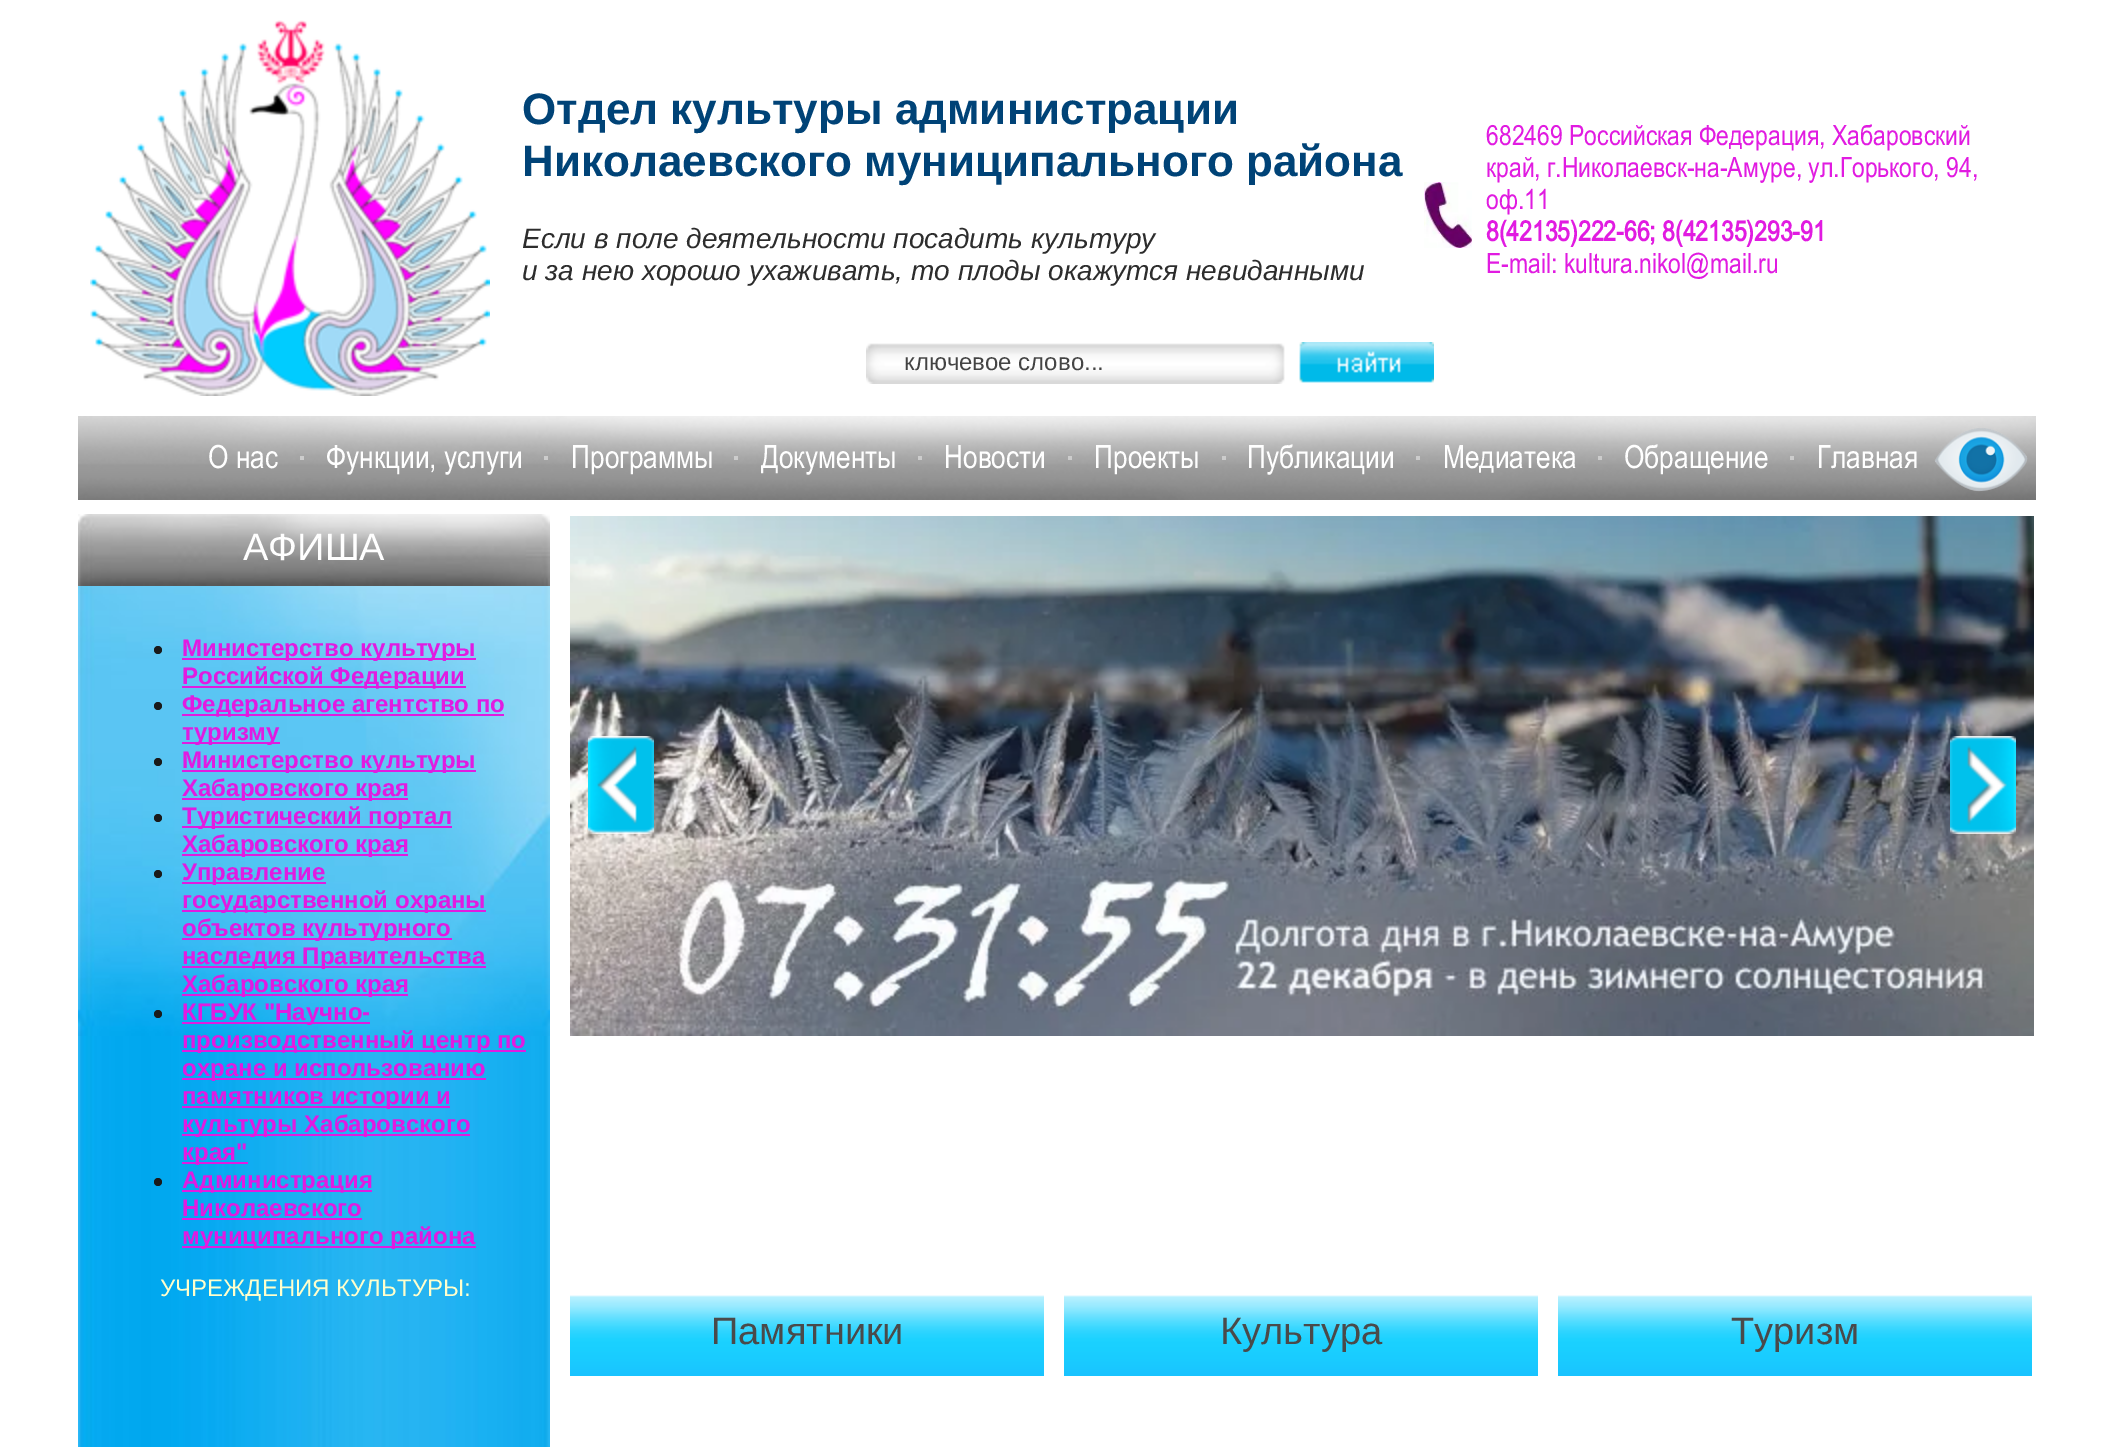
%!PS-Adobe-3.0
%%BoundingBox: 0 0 2128 1447
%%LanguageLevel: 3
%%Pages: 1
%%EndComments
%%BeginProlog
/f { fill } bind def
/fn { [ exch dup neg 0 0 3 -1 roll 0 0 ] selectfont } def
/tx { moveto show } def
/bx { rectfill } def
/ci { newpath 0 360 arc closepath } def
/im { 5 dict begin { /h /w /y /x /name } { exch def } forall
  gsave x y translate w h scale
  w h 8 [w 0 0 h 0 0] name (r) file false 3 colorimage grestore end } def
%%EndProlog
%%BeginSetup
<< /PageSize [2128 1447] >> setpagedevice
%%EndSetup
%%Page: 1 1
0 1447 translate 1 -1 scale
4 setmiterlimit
1 setgray
0 0 2128 1447 bx
(image0.raw) 90 20 400 376 im
/LiberationSans-Bold 44 fn
0 0.263 0.467 setrgbcolor
(Отдел культуры администрации) 522 124 tx
(Николаевского муниципального района) 522 176 tx
(image1.raw) 1424 182 48 66 im
/Arial-Regular 28 fn
0.882 0.106 0.882 setrgbcolor
(682469 Российская Федерация, Хабаровский) 1486 145 tx
(край, г.Николаевск-на-Амуре, ул.Горького, 94,) 1486 177 tx
(оф.11) 1486 209 tx
/Arial-Bold 28 fn
(8\(42135\)222-66; 8\(42135\)293-91) 1486 241 tx
/Arial-Regular 28 fn
(E-mail: kultura.nikol@mail.ru) 1486 273 tx
/LiberationSans-Italic 28 fn
0.176 setgray
(Если в поле деятельности посадить культуру) 522 248 tx
(и за нею хорошо ухаживать, то плоды окажутся невиданными) 522 280 tx
(image2.raw) 866 342 568 42 im
/LiberationSans-Regular 24 fn
0.267 setgray
(ключевое слово...) 904 370 tx
(image3.raw) 78 416 1958 84 im
/Arial-Regular 32 fn
1 setgray
(О нас) 208 468 tx
0.8 setgray
300 456 4 4 bx
1 setgray
(Функции, услуги) 326 468 tx
0.8 setgray
544 456 4 4 bx
1 setgray
(Программы) 571 468 tx
0.8 setgray
734 456 4 4 bx
1 setgray
(Документы) 761 468 tx
0.8 setgray
918 456 4 4 bx
1 setgray
(Новости) 944 468 tx
0.8 setgray
1068 456 4 4 bx
1 setgray
(Проекты) 1094 468 tx
0.8 setgray
1222 456 4 4 bx
1 setgray
(Публикации) 1247 468 tx
0.8 setgray
1416 456 4 4 bx
1 setgray
(Медиатека) 1443 468 tx
0.8 setgray
1598 456 4 4 bx
1 setgray
(Обращение) 1624 468 tx
0.8 setgray
1790 456 4 4 bx
1 setgray
(Главная) 1817 468 tx
(image4.raw) 1934 428 94 64 im
(image5.raw) 78 1036 472 411 im
(image6.raw) 78 586 472 450 im
(image7.raw) 78 514 472 72 im
/LiberationSans-Regular 38 fn
(АФИША) 243 560 tx
0.102 setgray
158 650 4 ci f
0.882 0.106 0.882 setrgbcolor
182 658 294 2 bx
/LiberationSans-Bold 24 fn
(Министерство культуры) 182 656 tx
182 686 284 2 bx
(Российской Федерации) 182 684 tx
0.102 setgray
158 706 4 ci f
0.882 0.106 0.882 setrgbcolor
182 714 322 2 bx
(Федеральное агентство по) 182 712 tx
182 742 98 2 bx
(туризму) 182 740 tx
0.102 setgray
158 762 4 ci f
0.882 0.106 0.882 setrgbcolor
182 770 294 2 bx
(Министерство культуры) 182 768 tx
182 798 226 2 bx
(Хабаровского края) 182 796 tx
0.102 setgray
158 818 4 ci f
0.882 0.106 0.882 setrgbcolor
182 826 270 2 bx
(Туристический портал) 182 824 tx
182 854 226 2 bx
(Хабаровского края) 182 852 tx
0.102 setgray
158 874 4 ci f
0.882 0.106 0.882 setrgbcolor
182 882 144 2 bx
(Управление) 182 880 tx
182 910 304 2 bx
(государственной охраны) 182 908 tx
182 938 270 2 bx
(объектов культурного) 182 936 tx
182 966 304 2 bx
(наследия Правительства) 182 964 tx
182 994 226 2 bx
(Хабаровского края) 182 992 tx
0.102 setgray
158 1014 4 ci f
0.882 0.106 0.882 setrgbcolor
182 1022 188 2 bx
(КГБУК "Научно-) 182 1020 tx
182 1050 344 2 bx
(производственный центр по) 182 1048 tx
182 1078 304 2 bx
(охране и использованию) 182 1076 tx
182 1106 268 2 bx
(памятников истории и) 182 1104 tx
182 1134 288 2 bx
(культуры Хабаровского) 182 1132 tx
182 1162 66 2 bx
(края") 182 1160 tx
0.102 setgray
158 1182 4 ci f
0.882 0.106 0.882 setrgbcolor
182 1190 190 2 bx
(Администрация) 182 1188 tx
(Николаевского) 182 1216 tx
182 1218 180 2 bx
182 1246 294 2 bx
(муниципального района) 182 1244 tx
/LiberationSans-Regular 24 fn
1 1 0.8 setrgbcolor
(УЧРЕЖДЕНИЯ КУЛЬТУРЫ:) 160 1296 tx
(image8.raw) 570 516 1464 520 im
(image9.raw) 588 736 66 98 im
(image10.raw) 1950 736 66 98 im
(image11.raw) 570 1295 474 81 im
/LiberationSans-Regular 38 fn
0.29 setgray
(Памятники) 711 1344 tx
(image11.raw) 1064 1295 474 81 im
(Культура) 1220 1344 tx
(image11.raw) 1558 1295 474 81 im
(Туризм) 1731 1344 tx
showpage
%%EOF
